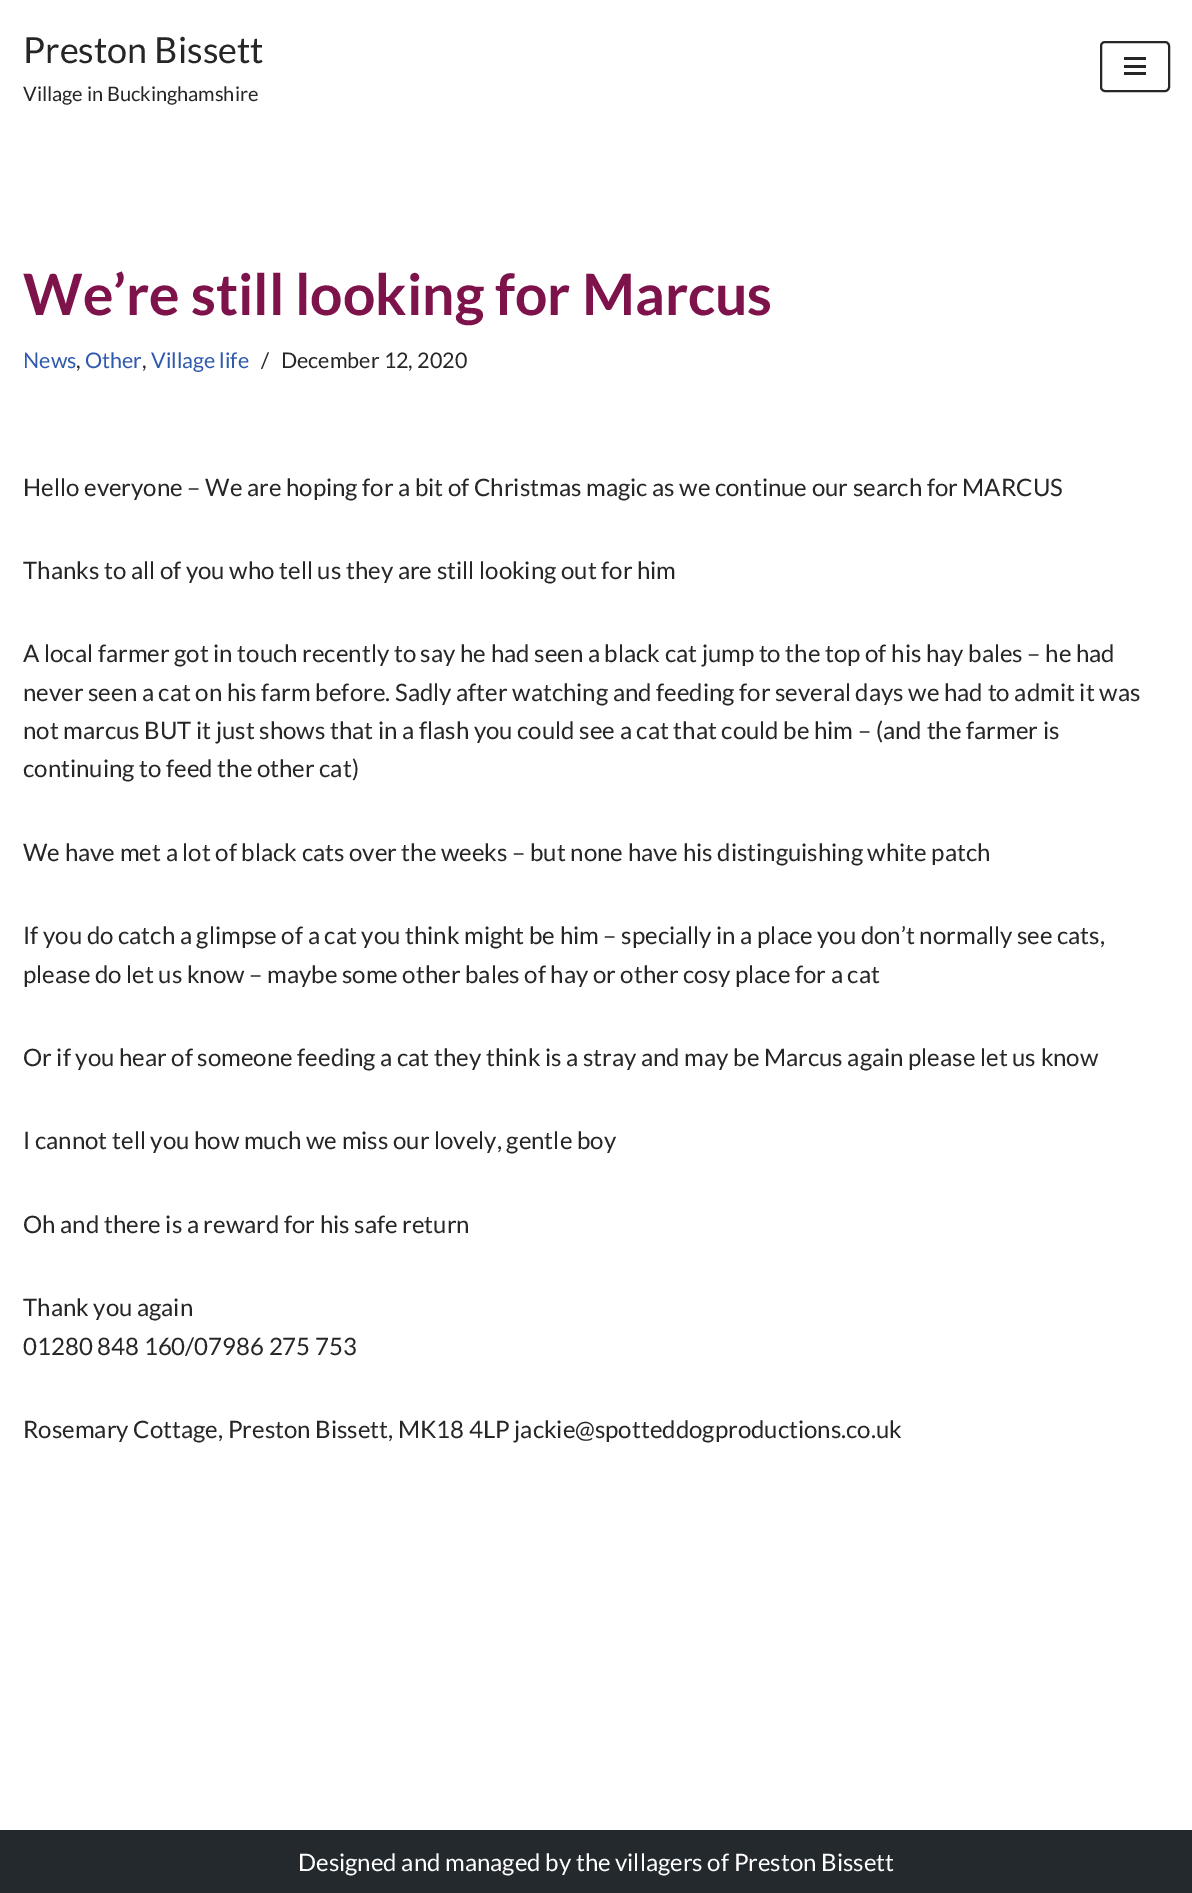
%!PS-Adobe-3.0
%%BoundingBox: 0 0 1192 1893
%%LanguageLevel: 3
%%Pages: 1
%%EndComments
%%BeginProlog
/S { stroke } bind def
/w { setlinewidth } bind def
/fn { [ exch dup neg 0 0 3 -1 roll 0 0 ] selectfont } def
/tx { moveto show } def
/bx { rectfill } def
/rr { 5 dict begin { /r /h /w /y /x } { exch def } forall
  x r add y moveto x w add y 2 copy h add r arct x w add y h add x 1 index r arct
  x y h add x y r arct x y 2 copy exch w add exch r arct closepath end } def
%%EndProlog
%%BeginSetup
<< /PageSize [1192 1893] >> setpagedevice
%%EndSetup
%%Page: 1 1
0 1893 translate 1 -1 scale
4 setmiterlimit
1 setgray
0 0 1192 1893 bx
/Lato-Regular 36 fn
0.153 0.149 0.149 setrgbcolor
(Preston Bissett) 23 63 tx
/Lato-Regular 20 fn
(Village in Buckinghamshire) 23 101 tx
2 w
1101 42 68 49 4 rr S
1124 57 22 3 bx
1124 65 22 3 bx
1124 72 22 3 bx
/Lato-Bold 57 fn
0.494 0.071 0.29 setrgbcolor
(We’re still looking for Marcus) 23 315 tx
/Lato-Regular 21.5 fn
0.184 0.353 0.682 setrgbcolor
(News) 23 368 tx
0.153 0.149 0.149 setrgbcolor
(,) 76 368 tx
0.184 0.353 0.682 setrgbcolor
(Other) 85 368 tx
0.153 0.149 0.149 setrgbcolor
(,) 142 368 tx
0.184 0.353 0.682 setrgbcolor
(Village life) 151 368 tx
0.153 0.149 0.149 setrgbcolor
(/) 261 368 tx
(December 12, 2020) 281 368 tx
/Lato-Regular 24 fn
(Hello everyone – We are hoping for a bit of Christmas magic as we continue our search for MARCUS) 23 496 tx
(Thanks to all of you who tell us they are still looking out for him) 23 579 tx
(A local farmer got in touch recently to say he had seen a black cat jump to the top of his hay bales – he had) 23 662 tx
(never seen a cat on his farm before. Sadly after watching and feeding for several days we had to admit it was) 23 701 tx
(not marcus BUT it just shows that in a flash you could see a cat that could be him – \(and the farmer is) 23 739 tx
(continuing to feed the other cat\)) 23 777 tx
(We have met a lot of black cats over the weeks – but none have his distinguishing white patch) 23 861 tx
(If you do catch a glimpse of a cat you think might be him – specially in a place you don’t normally see cats,) 23 944 tx
(please do let us know – maybe some other bales of hay or other cosy place for a cat) 23 983 tx
(Or if you hear of someone feeding a cat they think is a stray and may be Marcus again please let us know) 23 1066 tx
(I cannot tell you how much we miss our lovely, gentle boy) 23 1149 tx
(Oh and there is a reward for his safe return) 23 1233 tx
(Thank you again) 23 1316 tx
(01280 848 160/07986 275 753) 23 1355 tx
(Rosemary Cottage, Preston Bissett, MK18 4LP jackie@spotteddogproductions.co.uk) 23 1438 tx
0.141 0.161 0.18 setrgbcolor
0 1830 1192 63 bx
1 setgray
(Designed and managed by the villagers of Preston Bissett) 298 1871 tx
showpage
%%EOF
